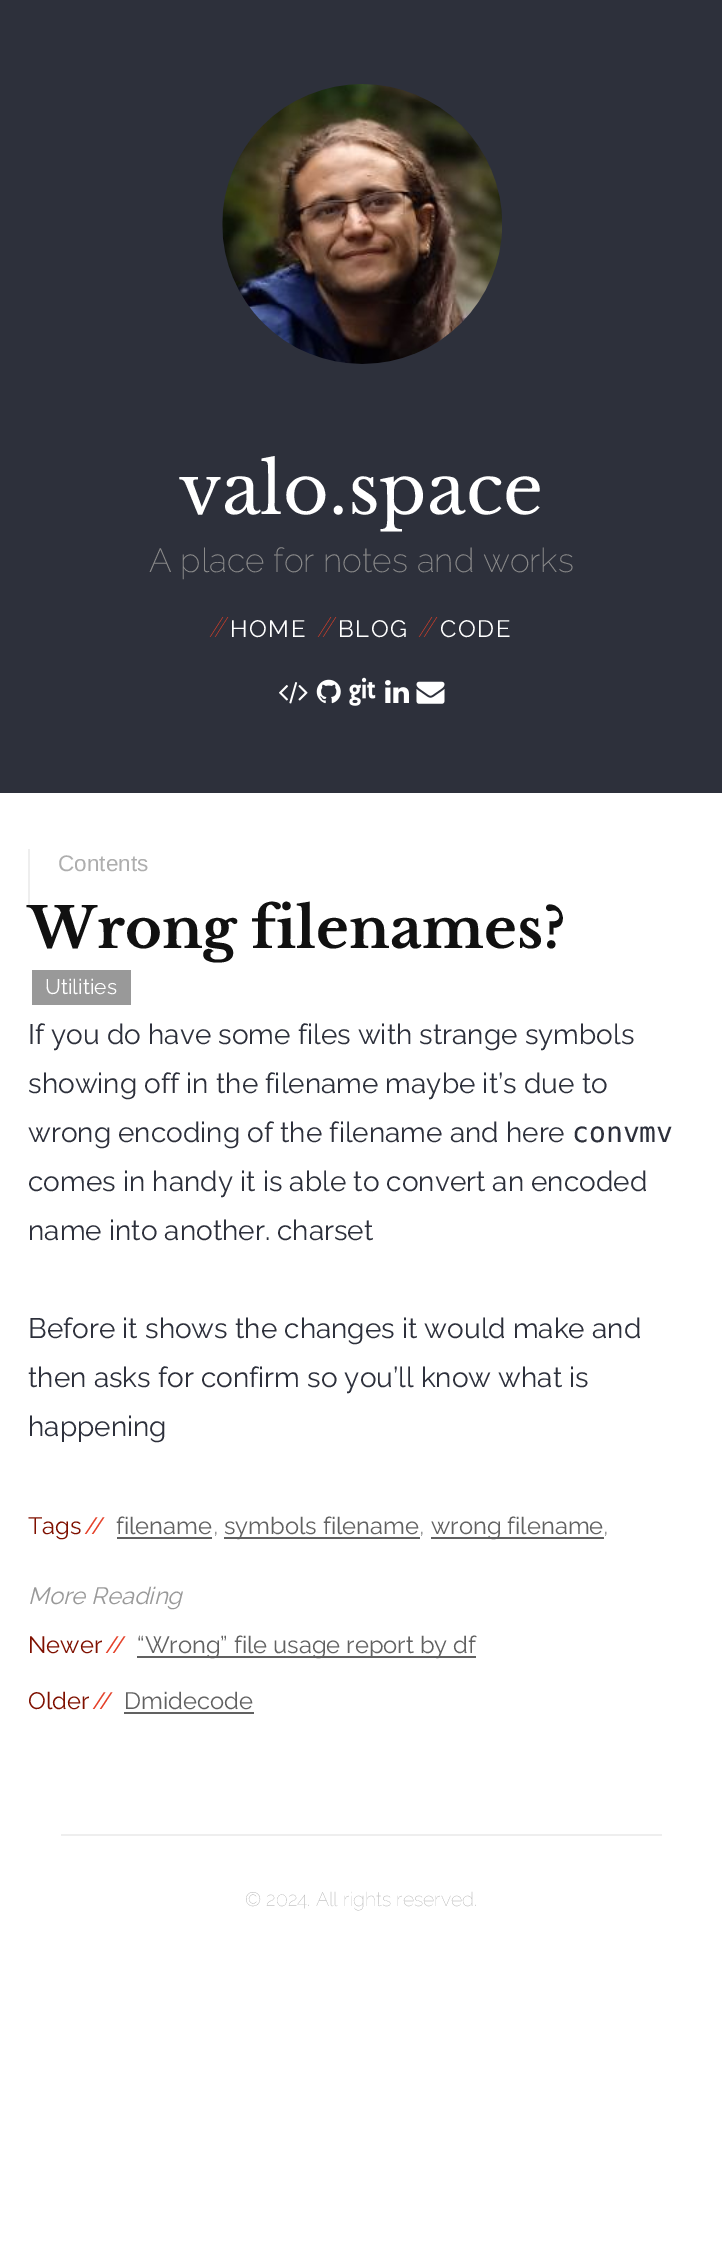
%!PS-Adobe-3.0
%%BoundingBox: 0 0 722 2257
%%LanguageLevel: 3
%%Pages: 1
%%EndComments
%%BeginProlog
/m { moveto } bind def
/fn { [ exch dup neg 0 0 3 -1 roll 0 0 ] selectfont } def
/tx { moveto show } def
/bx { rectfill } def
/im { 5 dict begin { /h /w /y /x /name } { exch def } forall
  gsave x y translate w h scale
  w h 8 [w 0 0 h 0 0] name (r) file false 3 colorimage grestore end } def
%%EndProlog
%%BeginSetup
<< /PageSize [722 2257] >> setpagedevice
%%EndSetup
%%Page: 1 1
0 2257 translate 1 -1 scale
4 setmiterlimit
1 setgray
0 0 722 2257 bx
0.176 0.188 0.231 setrgbcolor
0 0 722 793 bx
(image0.raw) 222 84 280 280 im
/LibreBaskerville-Regular 70 fn
1 setgray
(valo.space) 179 514 tx
/Raleway-ExtraLight 33.6 fn
0.545 setgray
(A place for notes and works) 149 572 tx
/Raleway-Thin 28 fn
0.898 0.251 0.157 setrgbcolor
209 637 m -10 0 (//) ashow
/Raleway-Regular 23.75 fn
1 setgray
230 637 m 1.5 0 (HOME) ashow
/Raleway-Thin 28 fn
0.898 0.251 0.157 setrgbcolor
317 637 m -10 0 (//) ashow
/Raleway-Regular 23.75 fn
1 setgray
338 637 m 1.5 0 (BLOG) ashow
/Raleway-Thin 28 fn
0.898 0.251 0.157 setrgbcolor
418 637 m -10 0 (//) ashow
/Raleway-Regular 23.75 fn
1 setgray
440 637 m 1.5 0 (CODE) ashow
(image1.raw) 279 682 29 22 im
(image2.raw) 316 679 25 25 im
(image3.raw) 349 677 27 29 im
(image4.raw) 385 680 24 23 im
(image5.raw) 416 681 29 23 im
0.933 setgray
28 849 2 56 bx
/LiberationSans-Regular 22.5 fn
0.682 setgray
(Contents) 58 871 tx
/LibreBaskerville-Bold 56 fn
0.067 setgray
(Wrong filenames?) 28 948 tx
0.6 setgray
32 970 99 35 bx
/Raleway-Regular 21 fn
1 setgray
(Utilities) 45 994 tx
/Raleway-Regular 28 fn
0.176 0.188 0.231 setrgbcolor
(If you do have some files with strange symbols) 28 1044 tx
(showing off in the filename maybe it’s due to) 28 1093 tx
(wrong encoding of the filename and here) 28 1142 tx
/DejaVuSansMono-Regular 28 fn
(convmv) 572 1142 tx
/Raleway-Regular 28 fn
(comes in handy it is able to convert an encoded) 28 1191 tx
(name into another. charset) 28 1240 tx
(Before it shows the changes it would make and) 28 1338 tx
(then asks for confirm so you’ll know what is) 28 1387 tx
(happening) 28 1436 tx
/Raleway-Regular 23.75 fn
0.498 0.063 0 setrgbcolor
(Tags) 28 1534 tx
0.898 0.251 0.157 setrgbcolor
84 1534 m -7 0 (//) ashow
0.38 setgray
(filename) 116 1534 tx
117 1537 95 2 bx
0.6 setgray
(,) 213 1534 tx
0.38 setgray
224 1537 196 2 bx
(symbols filename) 224 1534 tx
0.6 setgray
(,) 419 1534 tx
0.38 setgray
431 1537 173 2 bx
(wrong filename) 431 1534 tx
0.6 setgray
(,) 603 1534 tx
/Raleway-Italic 23.75 fn
(More Reading) 28 1604 tx
/Raleway-Regular 23.75 fn
0.498 0.063 0 setrgbcolor
(Newer) 28 1653 tx
0.898 0.251 0.157 setrgbcolor
105 1653 m -7 0 (//) ashow
0.38 setgray
137 1656 339 2 bx
(“Wrong” file usage report by df) 137 1653 tx
0.498 0.063 0 setrgbcolor
(Older) 28 1709 tx
0.898 0.251 0.157 setrgbcolor
92 1709 m -7 0 (//) ashow
0.38 setgray
(Dmidecode) 124 1709 tx
124 1712 130 2 bx
0.933 setgray
61 1834 601 2 bx
/Raleway-Thin 19.6 fn
0.682 setgray
(© 2024. All rights reserved.) 245 1906 tx
showpage
%%EOF
